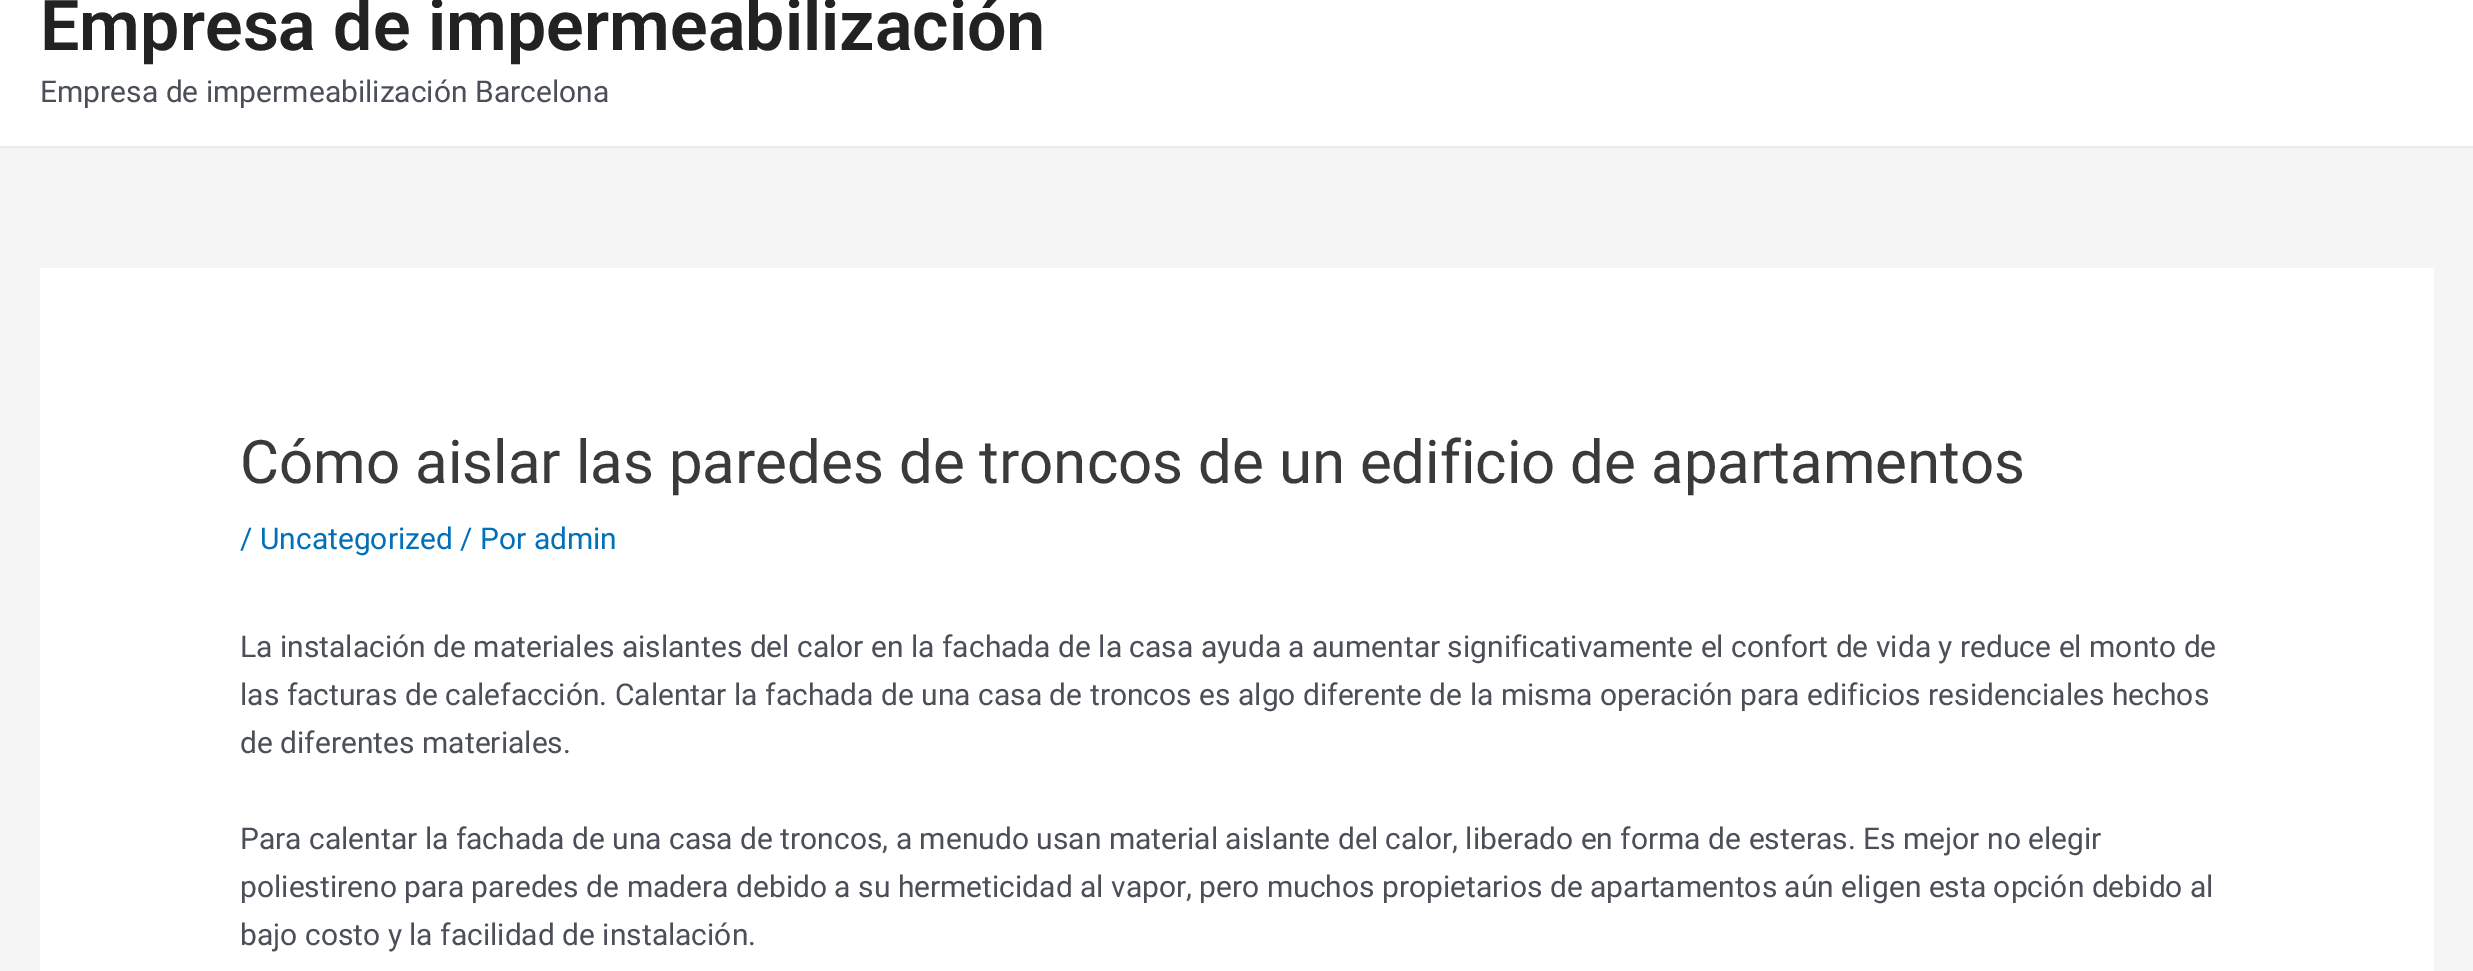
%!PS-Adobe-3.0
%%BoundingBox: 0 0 2473 971
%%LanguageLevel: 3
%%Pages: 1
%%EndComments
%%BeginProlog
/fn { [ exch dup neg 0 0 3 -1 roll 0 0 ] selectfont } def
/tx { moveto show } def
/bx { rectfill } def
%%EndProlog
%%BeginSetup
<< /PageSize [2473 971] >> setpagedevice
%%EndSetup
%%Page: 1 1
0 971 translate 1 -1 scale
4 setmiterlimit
0.961 setgray
0 0 2473 971 bx
1 setgray
0 0 2473 146 bx
0.918 setgray
0 146 2473 2 bx
/Roboto-SemiBold 70 fn
0.133 setgray
(Empresa de impermeabilización) 40 50 tx
/Roboto-Regular 30 fn
0.294 0.31 0.345 setrgbcolor
(Empresa de impermeabilización Barcelona) 40 102 tx
1 setgray
40 268 2394 703 bx
/Roboto-Regular 60 fn
0.227 setgray
(Cómo aislar las paredes de troncos de un edificio de apartamentos) 240 483 tx
/Roboto-Regular 30 fn
0.004 0.439 0.725 setrgbcolor
(/ Uncategorized / Por admin) 240 549 tx
0.294 0.31 0.345 setrgbcolor
(La instalación de materiales aislantes del calor en la fachada de la casa ayuda a aumentar significativamente el confort de vida y reduce el monto de) 240 657 tx
(las facturas de calefacción. Calentar la fachada de una casa de troncos es algo diferente de la misma operación para edificios residenciales hechos) 240 705 tx
(de diferentes materiales.) 240 753 tx
(Para calentar la fachada de una casa de troncos, a menudo usan material aislante del calor, liberado en forma de esteras. Es mejor no elegir) 240 849 tx
(poliestireno para paredes de madera debido a su hermeticidad al vapor, pero muchos propietarios de apartamentos aún eligen esta opción debido al) 240 897 tx
(bajo costo y la facilidad de instalación.) 240 945 tx
showpage
%%EOF
